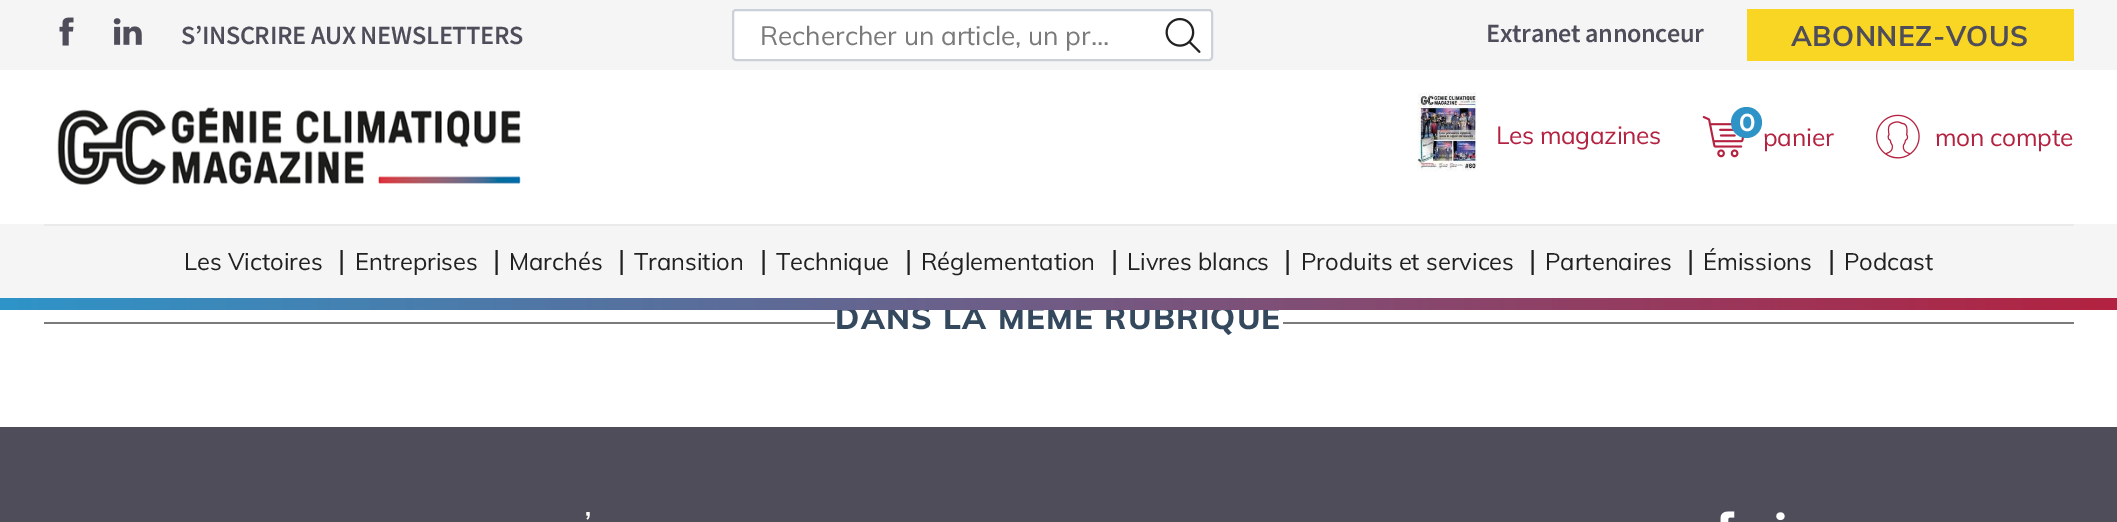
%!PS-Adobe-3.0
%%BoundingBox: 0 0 2117 522
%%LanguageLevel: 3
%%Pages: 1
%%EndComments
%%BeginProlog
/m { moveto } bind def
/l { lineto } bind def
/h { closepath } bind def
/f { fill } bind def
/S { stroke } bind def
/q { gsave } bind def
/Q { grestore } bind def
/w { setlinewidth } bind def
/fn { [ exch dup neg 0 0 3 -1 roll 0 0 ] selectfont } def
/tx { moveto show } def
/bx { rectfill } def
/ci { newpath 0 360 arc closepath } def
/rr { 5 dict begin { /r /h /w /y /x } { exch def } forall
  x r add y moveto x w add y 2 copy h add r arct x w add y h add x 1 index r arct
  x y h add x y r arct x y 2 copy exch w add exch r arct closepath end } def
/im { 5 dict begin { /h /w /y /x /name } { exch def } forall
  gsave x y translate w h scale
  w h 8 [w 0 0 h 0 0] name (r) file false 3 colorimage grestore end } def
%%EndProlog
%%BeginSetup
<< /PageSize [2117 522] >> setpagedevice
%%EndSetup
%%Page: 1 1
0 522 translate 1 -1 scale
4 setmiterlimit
1 setgray
0 0 2117 522 bx
0.961 setgray
0 0 2117 70 bx
(image0.raw) 59 17 15 29 im
(image1.raw) 113 18 29 27 im
/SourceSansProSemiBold-SemiBold 26.25 fn
0.31 0.302 0.353 setrgbcolor
181 44 m -0.35 0 (S’INSCRIRE AUX NEWSLETTERS) ashow
1 setgray
733 10 479 50 3 rr q f Q
0.8 0.82 0.851 setrgbcolor
2 w
S
/Muli-Regular 26.25 fn
0.478 setgray
(Rechercher un article, un pr…) 760 45 tx
(image2.raw) 1165 17 36 36 im
/SourceSansProSemiBold-SemiBold 26.25 fn
0.31 0.302 0.353 setrgbcolor
1486 42 m -0.35 0 (Extranet annonceur) ashow
0.973 0.839 0.137 setrgbcolor
1747 9 327 52 bx
/Muli-Bold 28 fn
0.31 0.302 0.353 setrgbcolor
1791 46 m 0.5 0 (ABONNEZ-VOUS) ashow
(image3.raw) 57 107 464 78 im
(image4.raw) 1417 92 60 79 im
/Muli-Regular 24.5 fn
0.706 0.133 0.255 setrgbcolor
1496 144 m -0.35 0 (Les magazines) ashow
(image5.raw) 1702 116 43 42 im
0.18 0.58 0.784 setrgbcolor
1746.5 122.5 15.5 ci f
/Montserrat-SemiBold 24.5 fn
1 setgray
1739 131 m -1 0 (0) ashow
/Muli-Regular 24.5 fn
0.706 0.133 0.255 setrgbcolor
1763 146 m -0.25 0 (panier) ashow
(image6.raw) 1876 114 44 45 im
1935 146 m -0.25 0 (mon compte) ashow
0.961 setgray
0 224 2117 74 bx
0.918 setgray
44 224 2030 2 bx
/Muli-Regular 23.75 fn
0.129 setgray
(Les Victoires) 184 270 tx
/Muli-Regular 28 fn
(|) 338 270 tx
/Muli-Regular 23.75 fn
(Entreprises) 355 270 tx
/Muli-Regular 28 fn
(|) 493 270 tx
/Muli-Regular 23.75 fn
(Marchés) 509 270 tx
/Muli-Regular 28 fn
(|) 618 270 tx
/Muli-Regular 23.75 fn
(Transition) 634 270 tx
/Muli-Regular 28 fn
(|) 760 270 tx
/Muli-Regular 23.75 fn
(Technique) 776 270 tx
/Muli-Regular 28 fn
(|) 905 270 tx
/Muli-Regular 23.75 fn
(Réglementation) 921 270 tx
/Muli-Regular 28 fn
(|) 1111 270 tx
/Muli-Regular 23.75 fn
(Livres blancs) 1127 270 tx
/Muli-Regular 28 fn
(|) 1284 270 tx
/Muli-Regular 23.75 fn
(Produits et services) 1301 270 tx
/Muli-Regular 28 fn
(|) 1529 270 tx
/Muli-Regular 23.75 fn
(Partenaires) 1545 270 tx
/Muli-Regular 28 fn
(|) 1687 270 tx
/Muli-Regular 23.75 fn
(Émissions) 1703 270 tx
/Muli-Regular 28 fn
(|) 1828 270 tx
/Muli-Regular 23.75 fn
(Podcast) 1844 270 tx
0.482 setgray
44 322 2030 2 bx
1 setgray
835 322 448 2 bx
/Muli-ExtraBold 31.5 fn
0.204 0.286 0.369 setrgbcolor
835 329 m 1.3 0 (DANS LA MÊME RUBRIQUE) ashow
q 0 298 m 2117 298 l 2117 310 l 0 310 l h clip newpath
<< /ShadingType 2 /ColorSpace /DeviceRGB /Coords [0 304 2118 304] /Extend [true true] /Function << /FunctionType 2 /Domain [0 1] /C0 [0.18 0.58 0.784] /C1 [0.706 0.133 0.255] /N 1 >> >> shfill Q
0.31 0.302 0.353 setrgbcolor
0 427 2117 95 bx
/Muli-Regular 35 fn
1 setgray
584 537 m 1 0 (’) ashow
(image7.raw) 1720 511 15 11 im
(image8.raw) 1776 512 9 9 im
showpage
%%EOF
